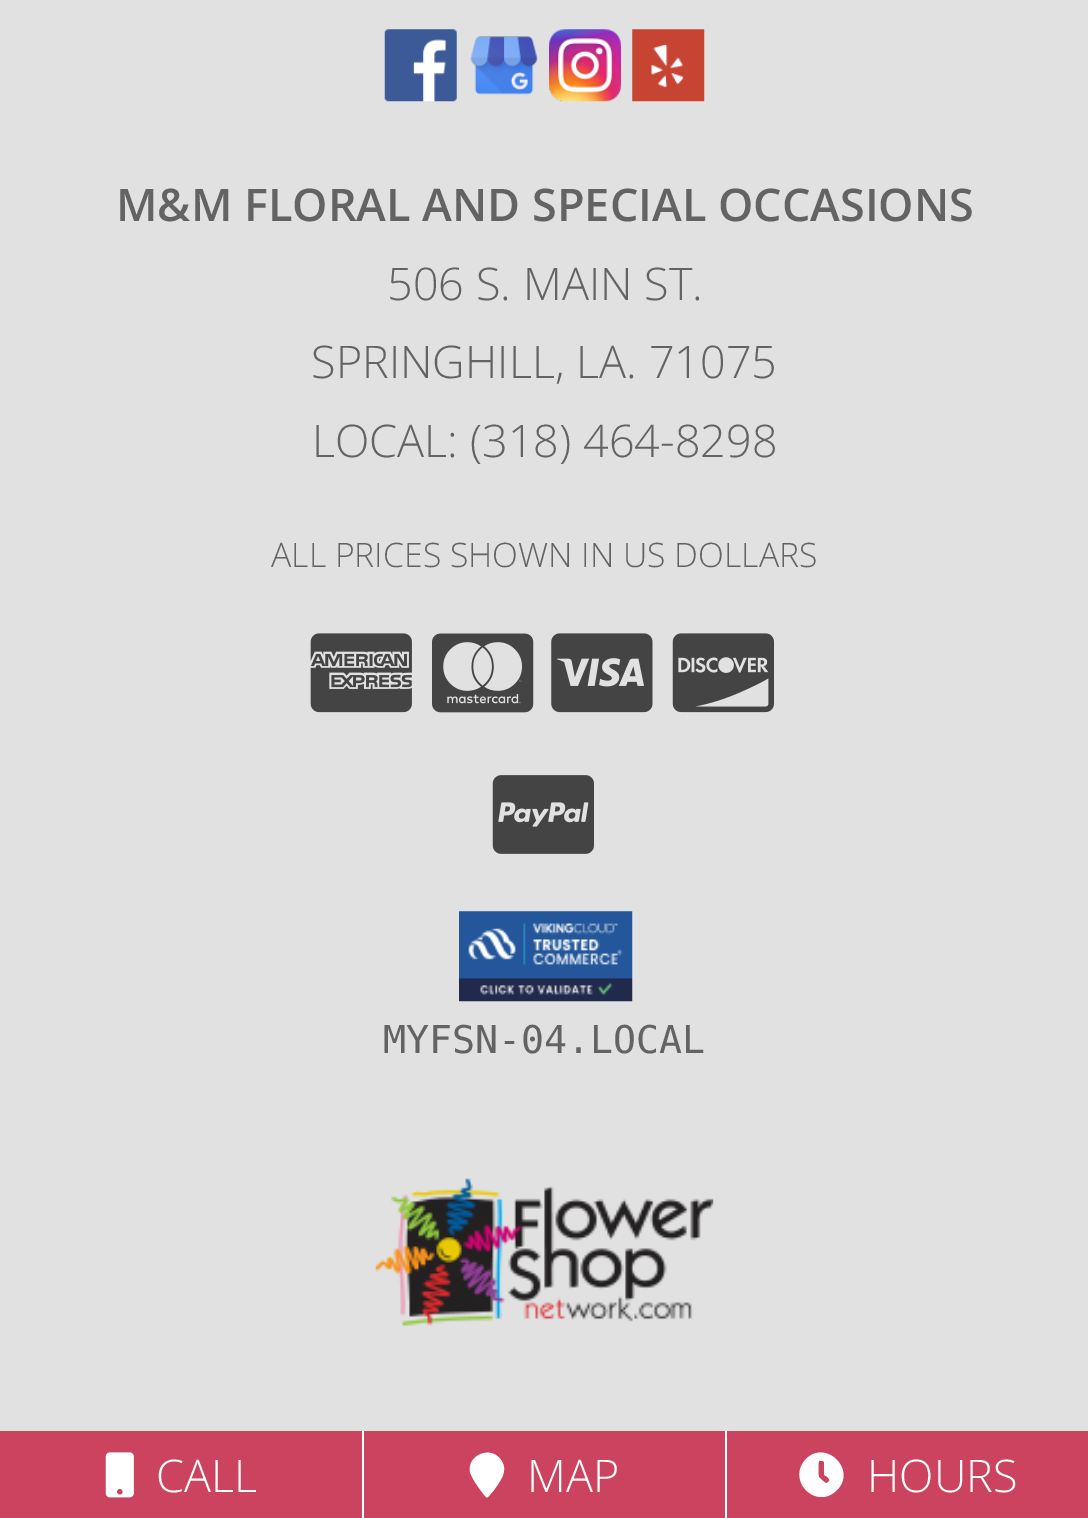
%!PS-Adobe-3.0
%%BoundingBox: 0 0 1088 1518
%%LanguageLevel: 3
%%Pages: 1
%%EndComments
%%BeginProlog
/m { moveto } bind def
/l { lineto } bind def
/c { curveto } bind def
/h { closepath } bind def
/f { fill } bind def
/fn { [ exch dup neg 0 0 3 -1 roll 0 0 ] selectfont } def
/tx { moveto show } def
/bx { rectfill } def
/im { 5 dict begin { /h /w /y /x /name } { exch def } forall
  gsave x y translate w h scale
  w h 8 [w 0 0 h 0 0] name (r) file false 3 colorimage grestore end } def
%%EndProlog
%%BeginSetup
<< /PageSize [1088 1518] >> setpagedevice
%%EndSetup
%%Page: 1 1
0 1518 translate 1 -1 scale
4 setmiterlimit
0.882 setgray
0 0 1088 1518 bx
(image0.raw) 384 29 73 73 im
(image1.raw) 470 36 68 59 im
(image2.raw) 549 29 72 73 im
(image3.raw) 632 29 73 73 im
/OpenSans-SemiBold 45 fn
0.388 setgray
(M&M FLORAL AND SPECIAL OCCASIONS) 116 221 tx
/OpenSans-Light 45 fn
(506 S. MAIN ST.) 387 300 tx
(SPRINGHILL, LA. 71075) 311 378 tx
(LOCAL: \(318\) 464-8298) 312 457 tx
/OpenSans-Light 33.75 fn
(ALL PRICES SHOWN IN US DOLLARS) 271 567 tx
(image4.raw) 310 633 102 80 im
(image5.raw) 432 633 102 80 im
(image6.raw) 551 633 102 80 im
(image7.raw) 672 633 102 80 im
(image8.raw) 492 775 102 79 im
(image9.raw) 459 911 174 91 im
/DejaVuSansMono-Regular 38.25 fn
(MYFSN-04.LOCAL) 383 1053 tx
(image10.raw) 375 1178 339 148 im
0.796 0.263 0.369 setrgbcolor
0 1431 362 87 bx
(image11.raw) 105 1452 29 46 im
/OpenSans-Light 45 fn
1 setgray
(CALL) 156 1492 tx
0.796 0.263 0.369 setrgbcolor
364 1431 361 87 bx
1 setgray
362 1431 2 87 bx
485 1496 m 481 1491 472 1479 470 1472 c 467 1455 491 1445 501 1460 c 509 1471 500 1481 494 1490 c 488 1497 l 487 1498 486 1497 485 1496 c h f
(MAP) 527 1492 tx
0.796 0.263 0.369 setrgbcolor
727 1431 361 87 bx
1 setgray
725 1431 2 87 bx
806 1459 m 826 1439 857 1470 837 1490 c 816 1511 786 1480 806 1459 c h 829 1481 m 831 1479 825 1475 824 1475 c 824 1462 l 823 1460 820 1461 819 1461 c 818 1462 818 1476 819 1477 c 823 1481 l 827 1484 826 1484 829 1481 c h f
(HOURS) 867 1492 tx
showpage
%%EOF
